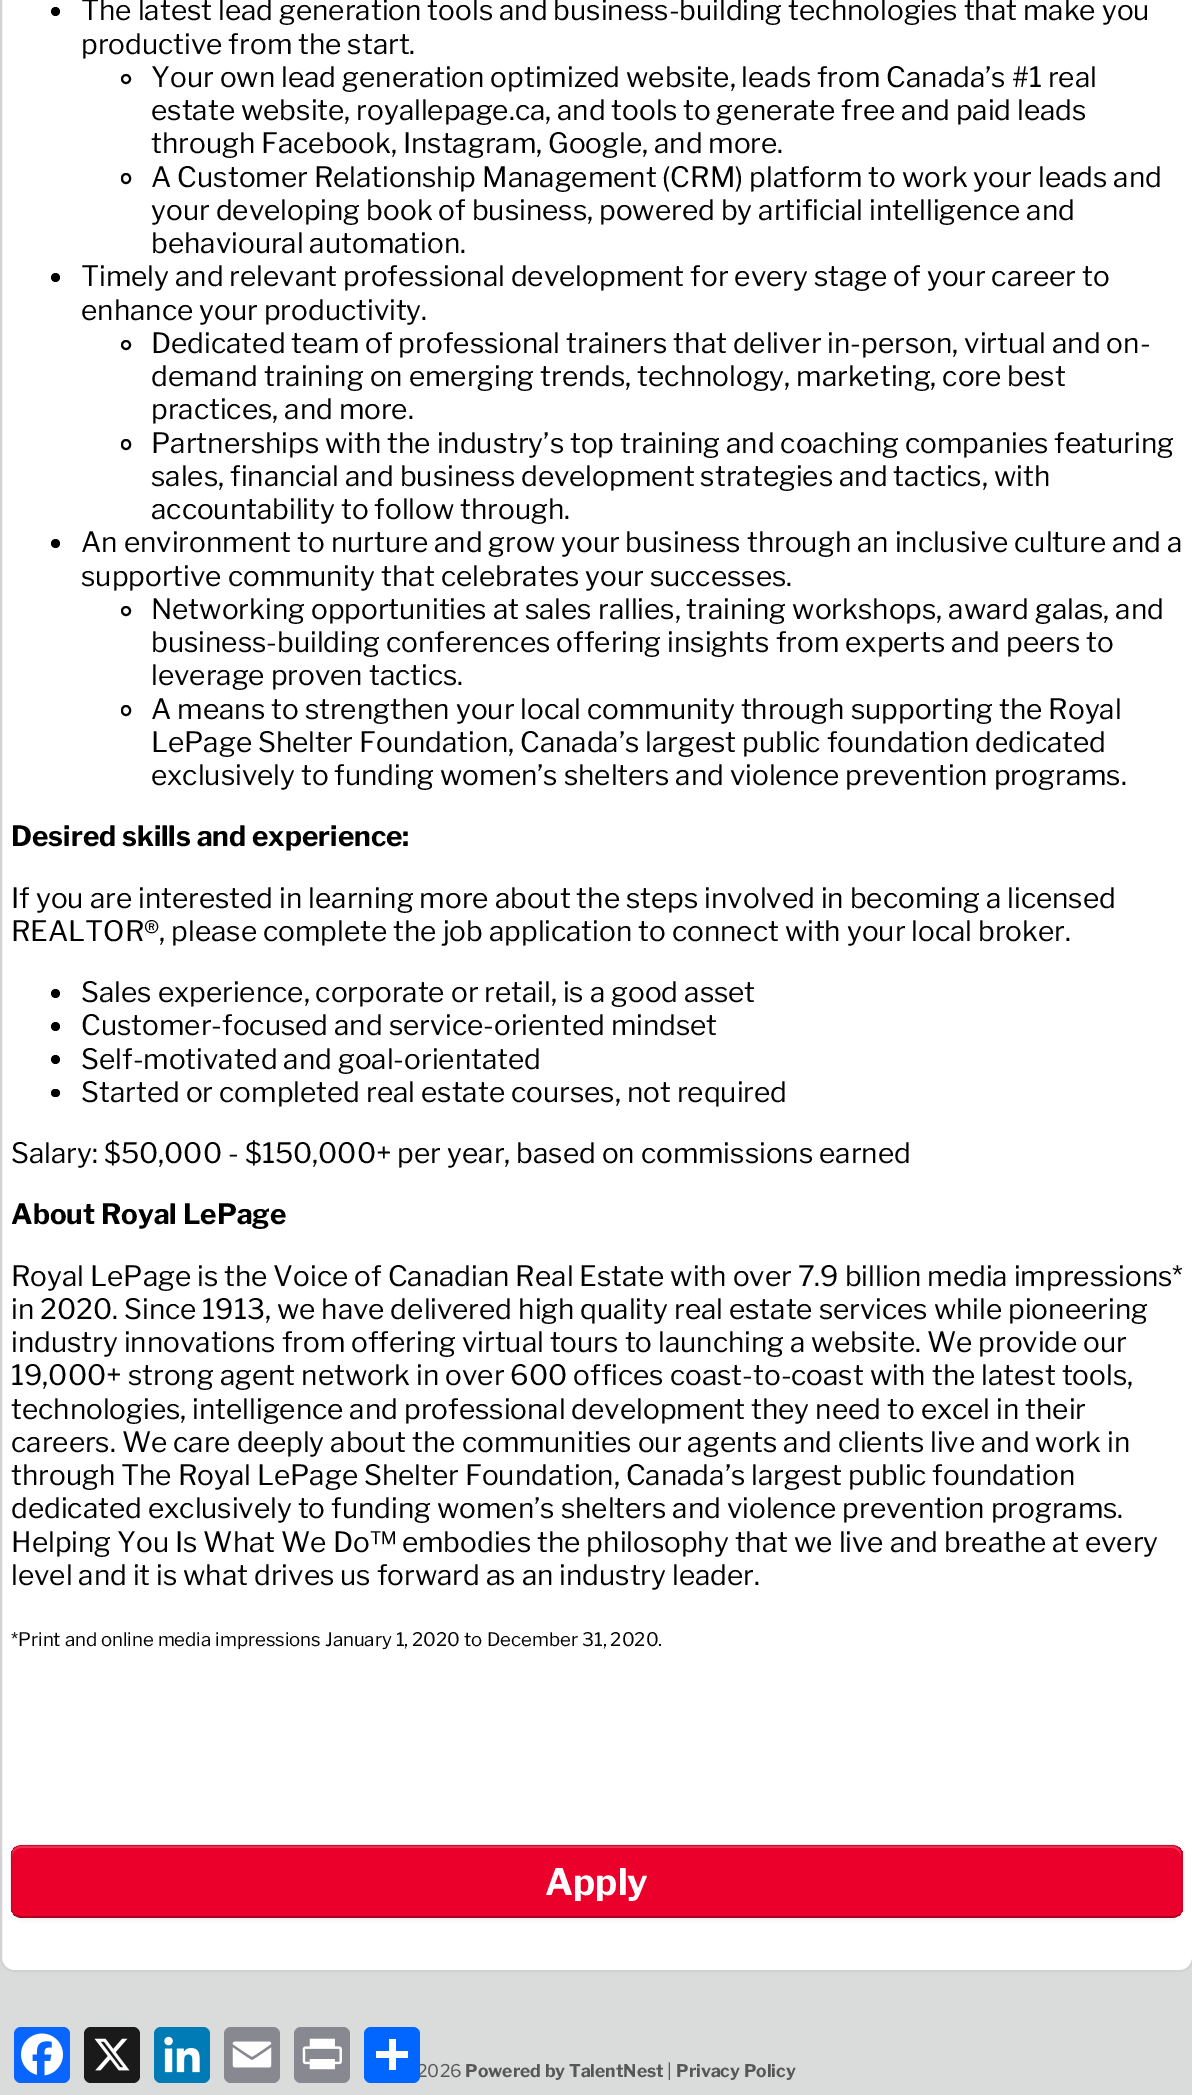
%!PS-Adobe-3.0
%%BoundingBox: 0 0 1192 2095
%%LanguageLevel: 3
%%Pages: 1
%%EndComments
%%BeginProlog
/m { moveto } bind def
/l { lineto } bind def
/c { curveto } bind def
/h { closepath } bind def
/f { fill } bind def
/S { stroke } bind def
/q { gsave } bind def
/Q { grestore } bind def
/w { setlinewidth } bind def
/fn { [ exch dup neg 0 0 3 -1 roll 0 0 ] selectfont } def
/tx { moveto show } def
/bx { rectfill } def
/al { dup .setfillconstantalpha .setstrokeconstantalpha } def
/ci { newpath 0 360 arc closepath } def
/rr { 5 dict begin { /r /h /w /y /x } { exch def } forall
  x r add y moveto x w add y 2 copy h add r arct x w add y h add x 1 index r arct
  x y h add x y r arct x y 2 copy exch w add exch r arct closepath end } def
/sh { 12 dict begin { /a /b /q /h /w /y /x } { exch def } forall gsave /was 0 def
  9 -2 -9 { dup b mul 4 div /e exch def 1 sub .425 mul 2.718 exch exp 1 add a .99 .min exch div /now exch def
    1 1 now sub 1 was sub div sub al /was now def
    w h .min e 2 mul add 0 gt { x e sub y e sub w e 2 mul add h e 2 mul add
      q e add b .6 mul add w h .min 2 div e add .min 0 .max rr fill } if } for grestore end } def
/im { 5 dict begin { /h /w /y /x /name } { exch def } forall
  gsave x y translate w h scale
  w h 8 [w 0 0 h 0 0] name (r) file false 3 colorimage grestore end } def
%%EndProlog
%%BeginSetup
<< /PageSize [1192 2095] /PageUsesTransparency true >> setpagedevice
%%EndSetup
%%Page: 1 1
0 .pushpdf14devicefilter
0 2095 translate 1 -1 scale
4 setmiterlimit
0.855 0.859 0.859 setrgbcolor
0 0 1192 2095 bx
1 setgray
1 -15 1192 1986 13 rr q f Q
0.824 setgray
2 w
S
0 setgray
55.5 11.5 4.5 ci f
/LibreFranklin-Regular 28 fn
(The latest lead generation tools and business-building technologies that make you) 81 20 tx
(productive from the start.) 81 54 tx
126 79 4 ci S
(Your own lead generation optimized website, leads from Canada’s #1 real) 151 87 tx
(estate website, royallepage.ca, and tools to generate free and paid leads) 151 120 tx
(through Facebook, Instagram, Google, and more.) 151 153 tx
122 174 8 9 4 rr S
(A Customer Relationship Management \(CRM\) platform to work your leads and) 151 187 tx
(your developing book of business, powered by artificial intelligence and) 151 220 tx
(behavioural automation.) 151 253 tx
55.5 277.5 4.5 ci f
(Timely and relevant professional development for every stage of your career to) 81 286 tx
(enhance your productivity.) 81 320 tx
126 345 4 ci S
(Dedicated team of professional trainers that deliver in-person, virtual and on-) 151 353 tx
(demand training on emerging trends, technology, marketing, core best) 151 386 tx
(practices, and more.) 151 419 tx
122 440 8 9 4 rr S
(Partnerships with the industry’s top training and coaching companies featuring) 151 453 tx
(sales, financial and business development strategies and tactics, with) 151 486 tx
(accountability to follow through.) 151 519 tx
55.5 543.5 4.5 ci f
(An environment to nurture and grow your business through an inclusive culture and a) 81 552 tx
(supportive community that celebrates your successes.) 81 586 tx
126 611 4 ci S
(Networking opportunities at sales rallies, training workshops, award galas, and) 151 619 tx
(business-building conferences offering insights from experts and peers to) 151 652 tx
(leverage proven tactics.) 151 685 tx
122 706 8 9 4 rr S
(A means to strengthen your local community through supporting the Royal) 151 719 tx
(LePage Shelter Foundation, Canada’s largest public foundation dedicated) 151 752 tx
(exclusively to funding women’s shelters and violence prevention programs.) 151 785 tx
/LibreFranklin-Bold 28 fn
(Desired skills and experience:) 11 846 tx
/LibreFranklin-Regular 28 fn
(If you are interested in learning more about the steps involved in becoming a licensed) 11 908 tx
(REALTOR®, please complete the job application to connect with your local broker.) 11 941 tx
55.5 993.5 4.5 ci f
(Sales experience, corporate or retail, is a good asset) 81 1002 tx
55.5 1026.5 4.5 ci f
(Customer-focused and service-oriented mindset) 81 1035 tx
55.5 1059.5 4.5 ci f
(Self-motivated and goal-orientated) 81 1069 tx
51 1089 9 8 4 rr f
(Started or completed real estate courses, not required) 81 1102 tx
(Salary: $50,000 - $150,000+ per year, based on commissions earned) 11 1163 tx
/LibreFranklin-Bold 28 fn
(About Royal LePage) 11 1224 tx
/LibreFranklin-Regular 28 fn
(Royal LePage is the Voice of Canadian Real Estate with over 7.9 billion media impressions*) 11 1286 tx
(in 2020. Since 1913, we have delivered high quality real estate services while pioneering) 11 1319 tx
(industry innovations from offering virtual tours to launching a website. We provide our) 11 1352 tx
(19,000+ strong agent network in over 600 offices coast-to-coast with the latest tools,) 11 1385 tx
(technologies, intelligence and professional development they need to excel in their) 11 1419 tx
(careers. We care deeply about the communities our agents and clients live and work in) 11 1452 tx
(through The Royal LePage Shelter Foundation, Canada’s largest public foundation) 11 1485 tx
(dedicated exclusively to funding women’s shelters and violence prevention programs.) 11 1518 tx
(Helping You Is What We Do™ embodies the philosophy that we live and breathe at every) 11 1552 tx
(level and it is what drives us forward as an industry leader.) 11 1585 tx
/LibreFranklin-Regular 18.65 fn
(*Print and online media impressions January 1, 2020 to December 31, 2020.) 11 1646 tx
11 1846 1172 74 11 2 0.05 sh
0.918 0 0.165 setrgbcolor
11 1845 1172 73 11 rr f
q
11 1845 1172 73 11 rr clip newpath
11 1846 1172 70 bx
Q
0.933 0.2 0.333 setrgbcolor
21 1848 m 1172 1848 l 1177 1848 1181 1852 1181 1857 c 1181 1855 l 1181 1850 1177 1846 1172 1846 c 21 1846 l 16 1846 12 1850 12 1855 c 12 1857 l 12 1852 16 1848 21 1848 c h f
0.25 al
0 setgray
1.8 w
1179.5 1914.5 m 1177.5 1916 1175 1917 1172.5 1917 c 21 1917 l 18.5 1917 16 1916 14 1914.5 c S
0.1 al
14 1914.5 m 12.5 1912.5 11.5 1910 11.5 1907.5 c 11.5 1855 l 11.5 1852.5 12.5 1850 14 1848 c 16 1846.5 18.5 1845.5 21 1845.5 c 1172.5 1845.5 l 1175 1845.5 1177.5 1846.5 1179.5 1848 c 1181 1850 1182 1852.5 1182 1855 c 1182 1907.5 l 1182 1910 1181 1912.5 1179.5 1914.5 c S
/LibreFranklin-Bold 36.5 fn
1 al
1 setgray
(Apply) 545 1895 tx
0.031 0.4 1 setrgbcolor
14 2027 56 56 7 rr f
(image0.raw) 21 2033 42 43 im
0.102 setgray
84 2027 56 56 7 rr f
(image1.raw) 94 2038 36 33 im
0 0.482 0.71 setrgbcolor
154 2027 56 56 7 rr f
(image2.raw) 164 2036 36 37 im
0.533 0.537 0.565 setrgbcolor
224 2027 56 56 7 rr f
(image3.raw) 232 2041 40 27 im
294 2027 56 56 7 rr f
(image4.raw) 302 2038 40 32 im
/LibreFranklin-Regular 17.5 fn
0.341 setgray
(2026) 417 2077 tx
0.004 0.4 1 setrgbcolor
364 2027 56 56 7 rr f
1 setgray
389 2039 7 31 bx
376 2051 32 7 bx
/LibreFranklin-Bold 17.5 fn
0.341 setgray
(Powered by TalentNest) 465 2077 tx
/LibreFranklin-Regular 17.5 fn
(|) 667 2077 tx
/LibreFranklin-Bold 17.5 fn
(Privacy Policy) 676 2077 tx
.poppdf14devicefilter showpage
%%EOF
